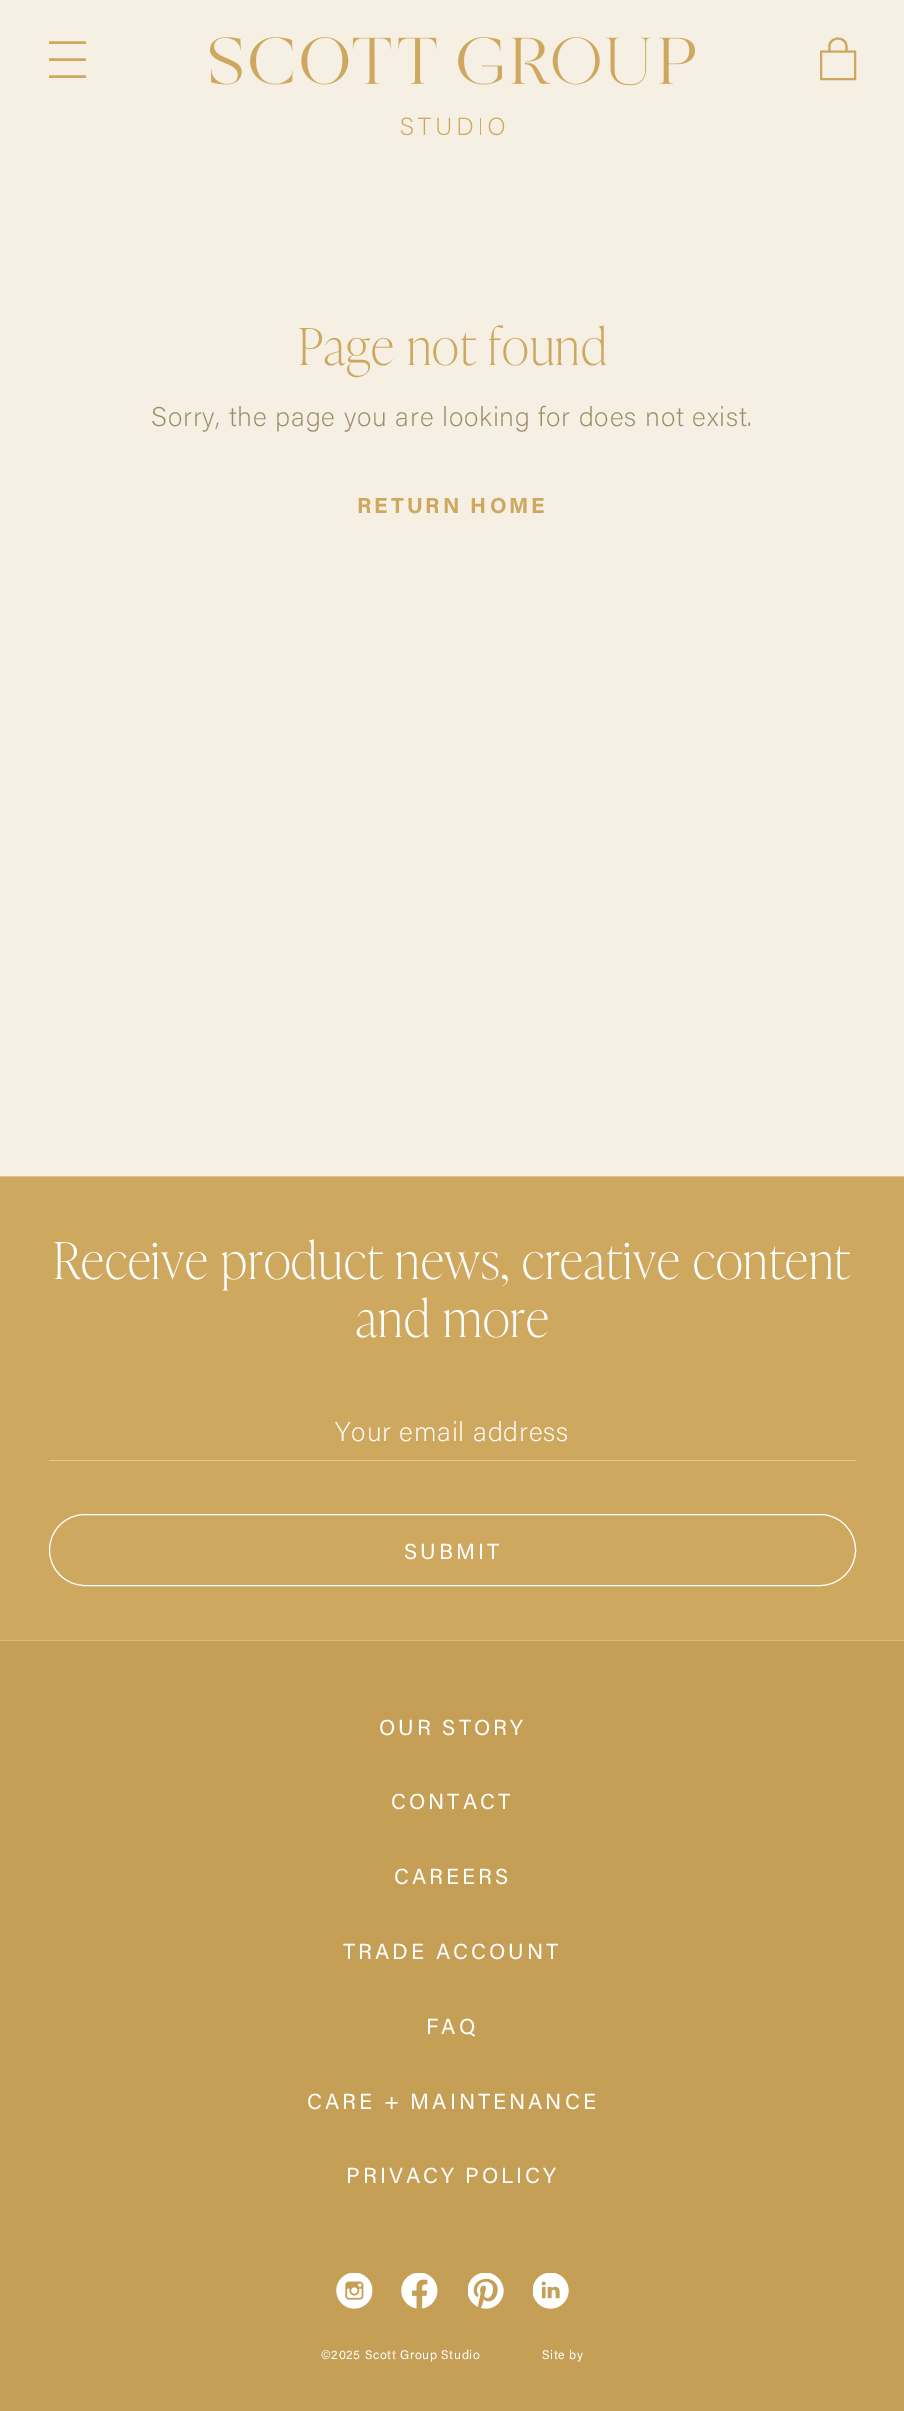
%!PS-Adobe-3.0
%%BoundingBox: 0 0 904 2411
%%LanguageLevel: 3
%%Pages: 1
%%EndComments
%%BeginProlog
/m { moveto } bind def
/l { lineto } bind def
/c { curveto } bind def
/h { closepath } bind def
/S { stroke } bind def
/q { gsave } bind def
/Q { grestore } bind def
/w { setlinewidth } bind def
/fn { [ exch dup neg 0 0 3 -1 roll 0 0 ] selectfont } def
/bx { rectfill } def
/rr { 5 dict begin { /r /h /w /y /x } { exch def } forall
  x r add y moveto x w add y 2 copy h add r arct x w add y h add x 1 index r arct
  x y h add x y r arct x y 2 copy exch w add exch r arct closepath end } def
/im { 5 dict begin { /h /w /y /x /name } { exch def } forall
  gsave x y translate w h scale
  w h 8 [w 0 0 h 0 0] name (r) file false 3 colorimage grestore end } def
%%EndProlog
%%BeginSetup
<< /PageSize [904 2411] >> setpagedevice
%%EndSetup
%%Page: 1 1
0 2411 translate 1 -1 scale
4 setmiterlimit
0.965 0.941 0.894 setrgbcolor
0 0 904 2411 bx
q
49 41 37 37 rectclip
0.812 0.659 0.373 setrgbcolor
2.4 w
2 setlinecap
50 42.5 m 86 42.5 l 50 59.5 m 86 59.5 l 50 76.5 m 86 76.5 l S
Q
(image0.raw) 210 37 485 99 im
0.812 0.659 0.373 setrgbcolor
2.1 w
855 51.5 m 855 79 l 821 79 l 821 51.5 l h 846.5 51.5 m 846.5 48 847 44.5 845 42 c 841.5 36.5 832.5 37.5 830 43.5 c 829 46 829.5 48.5 829.5 51.5 c S
/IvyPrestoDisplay-Thin 50.7 fn
298 365 m 1 0 (Page not found) ashow
/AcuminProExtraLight-ExtraLight 27.15 fn
0.624 0.553 0.416 setrgbcolor
151 426 m 0.8 0 (Sorry, the page you are looking for does not exist.) ashow
/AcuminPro-Bold 21.75 fn
0.812 0.659 0.373 setrgbcolor
357 513 m 3 0 (RETURN HOME) ashow
0 1177 904 463 bx
0.863 0.749 0.541 setrgbcolor
0 1176 904 1 bx
/IvyPrestoDisplay-Thin 50.7 fn
1 setgray
53 1279 m 1 0 (Receive product news, creative content) ashow
356 1337 m 1 0 (and more) ashow
0.886 0.792 0.616 setrgbcolor
49 1460 807 1 bx
/AcuminProExtraLight-ExtraLight 27.15 fn
1 setgray
335 1441 m 0.8 0 (Your email address) ashow
1 w
49.5 1514.5 806 71 35.5 rr S
/AcuminPro-Regular 21.75 fn
404 1559 m 3 0 (SUBMIT) ashow
0.776 0.624 0.337 setrgbcolor
0 1641 904 770 bx
0.835 0.725 0.518 setrgbcolor
0 1640 904 1 bx
1 setgray
379 1735 m 3 0 (OUR STORY) ashow
391 1809 m 3 0 (CONTACT) ashow
394 1884 m 3 0 (CAREERS) ashow
343 1959 m 3 0 (TRADE ACCOUNT) ashow
426 2034 m 3 0 (FAQ) ashow
307 2109 m 3 0 (CARE + MAINTENANCE) ashow
346 2183 m 3 0 (PRIVACY POLICY) ashow
(image1.raw) 336 2273 37 36 im
(image2.raw) 401 2273 37 36 im
(image3.raw) 468 2273 36 36 im
(image4.raw) 533 2273 36 36 im
/AcuminPro-Regular 12.5 fn
321 2359 m 0.6 0 (©2025 Scott Group Studio) ashow
542 2359 m 0.6 0 (Site by) ashow
showpage
%%EOF
